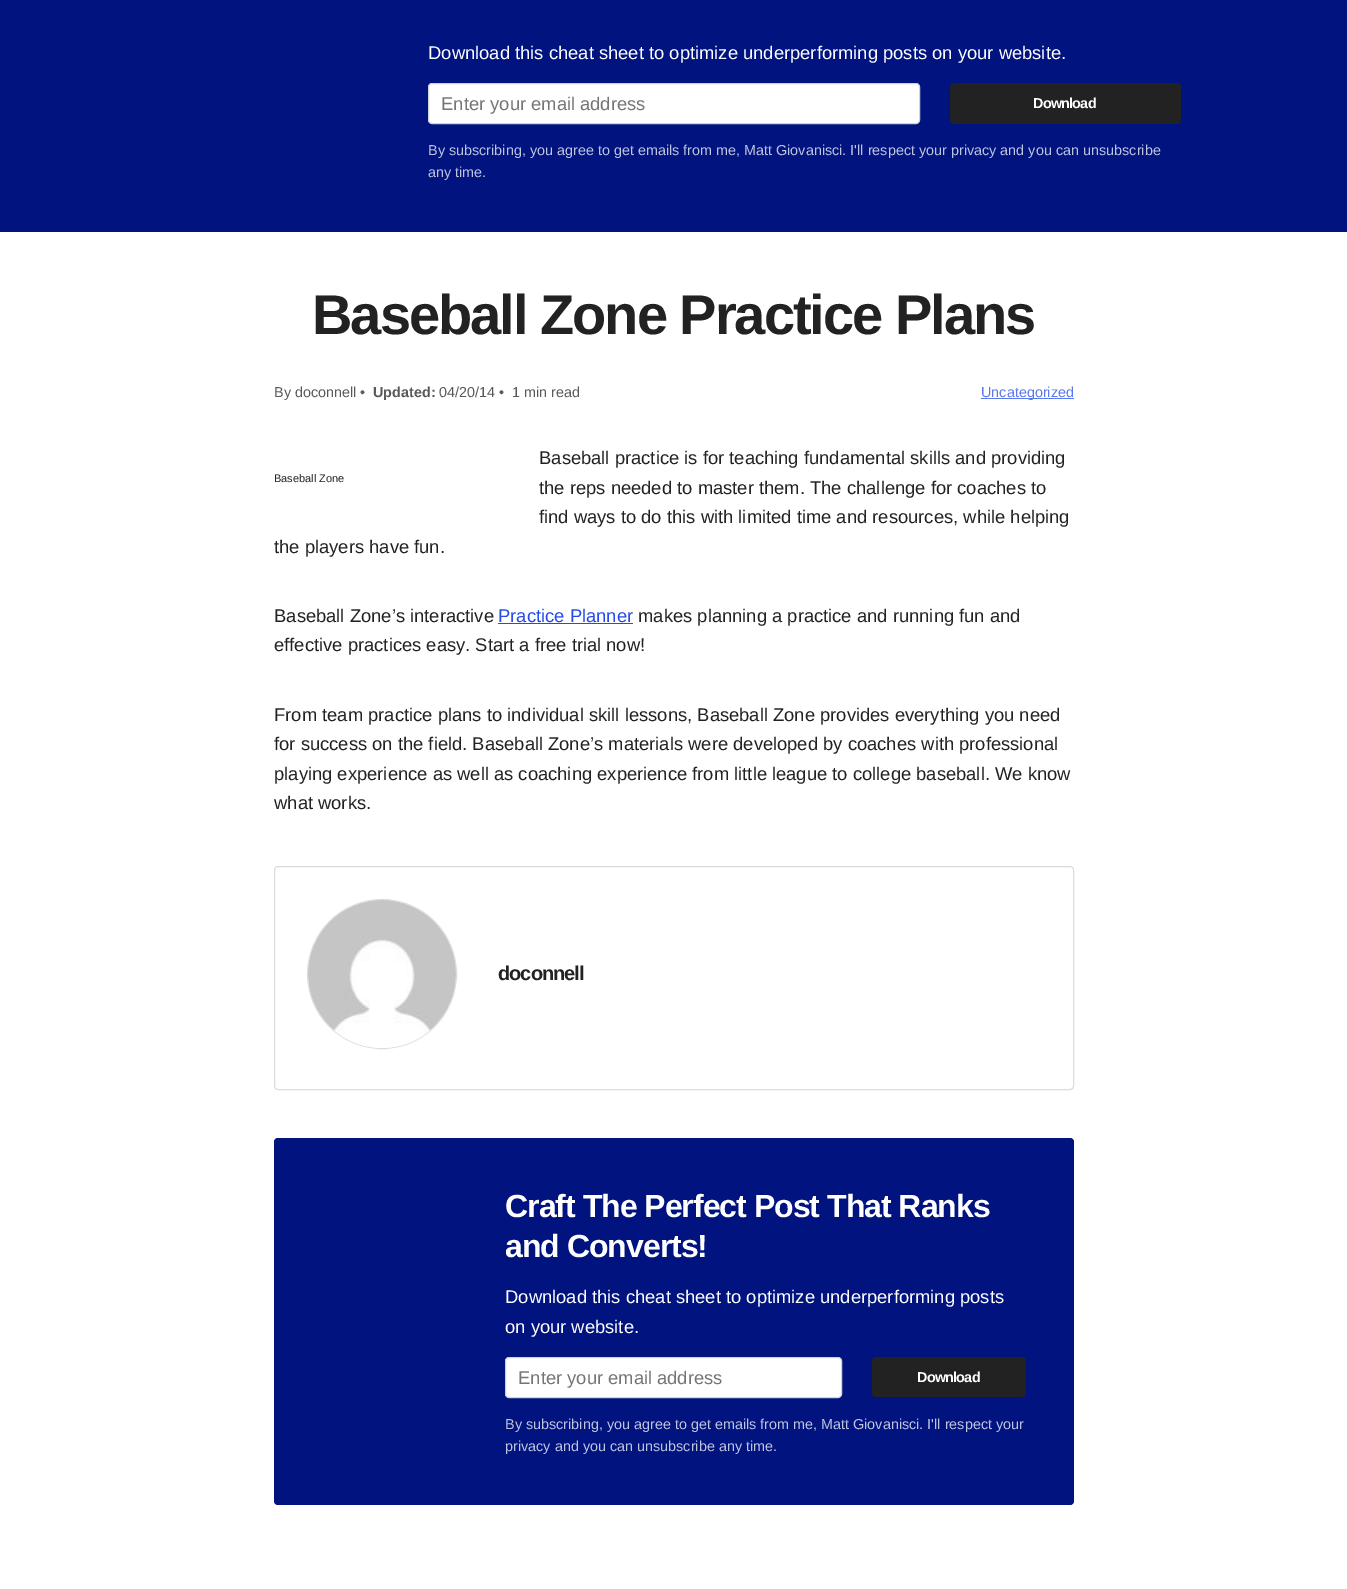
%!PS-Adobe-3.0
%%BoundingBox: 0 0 1347 1589
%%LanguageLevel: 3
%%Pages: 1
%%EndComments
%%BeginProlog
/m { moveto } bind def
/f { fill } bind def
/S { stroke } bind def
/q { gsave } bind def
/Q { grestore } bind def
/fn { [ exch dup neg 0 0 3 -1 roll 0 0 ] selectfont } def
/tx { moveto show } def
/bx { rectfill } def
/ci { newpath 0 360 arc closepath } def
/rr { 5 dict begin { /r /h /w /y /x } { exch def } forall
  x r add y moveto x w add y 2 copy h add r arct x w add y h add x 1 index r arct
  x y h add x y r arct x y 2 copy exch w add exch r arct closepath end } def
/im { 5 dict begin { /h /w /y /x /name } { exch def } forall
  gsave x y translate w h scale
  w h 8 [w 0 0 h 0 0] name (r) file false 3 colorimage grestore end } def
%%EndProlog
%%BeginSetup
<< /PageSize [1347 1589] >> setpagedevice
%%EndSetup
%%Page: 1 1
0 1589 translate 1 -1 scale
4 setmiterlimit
1 setgray
0 0 1347 1589 bx
0 0.075 0.498 setrgbcolor
0 0 1347 232 bx
/LiberationSans-Regular 18.4 fn
1 setgray
(Download this cheat sheet to optimize underperforming posts on your website.) 428 59 tx
428.5 83.5 491 40 3.5 rr q f Q
0.808 0.831 0.855 setrgbcolor
S
0.459 setgray
(Enter your email address) 441 110 tx
0.133 setgray
950 83 231 41 4 rr f
/LiberationSans-Bold 14.4 fn
1 setgray
1033 108 m -0.75 0 (Download) ashow
/LiberationSans-Regular 14.4 fn
0.749 0.769 0.875 setrgbcolor
(By subscribing, you agree to get emails from me, Matt Giovanisci. I'll respect your privacy and you can unsubscribe) 428 155 tx
(any time.) 428 177 tx
/LiberationSans-Bold 56 fn
0.133 setgray
312 334 m -2 0 (Baseball Zone Practice Plans) ashow
/LiberationSans-Regular 14.4 fn
0.349 setgray
(By doconnell •) 274 397 tx
/LiberationSans-Bold 14.4 fn
(Updated:) 373 397 tx
/LiberationSans-Regular 14.4 fn
(04/20/14 •) 439 397 tx
(1 min read) 512 397 tx
0.357 0.471 0.925 setrgbcolor
981 398 93 1 bx
(Uncategorized) 981 397 tx
/LiberationSans-Regular 18.4 fn
0.133 setgray
(Baseball practice is for teaching fundamental skills and providing) 539 464 tx
(the reps needed to master them. The challenge for coaches to) 539 494 tx
(find ways to do this with limited time and resources, while helping) 539 523 tx
(the players have fun.) 274 553 tx
/LiberationSans-Regular 11 fn
(Baseball Zone) 274 482 tx
/LiberationSans-Regular 18.4 fn
(Baseball Zone’s interactive) 274 622 tx
0.141 0.294 0.898 setrgbcolor
(Practice Planner) 498 622 tx
498 623 135 1 bx
0.133 setgray
(makes planning a practice and running fun and) 638 622 tx
(effective practices easy. Start a free trial now!) 274 651 tx
(From team practice plans to individual skill lessons, Baseball Zone provides everything you need) 274 721 tx
(for success on the field. Baseball Zone’s materials were developed by coaches with professional) 274 750 tx
(playing experience as well as coaching experience from little league to college baseball. We know) 274 780 tx
(what works.) 274 809 tx
0.867 setgray
274.5 866.5 799 223 3.5 rr S
382 974 74.5 ci S
(image0.raw) 308 900 148 148 im
/LiberationSans-Bold 20 fn
0.133 setgray
498 980 m -1 0 (doconnell) ashow
0 0.075 0.498 setrgbcolor
274 1138 800 367 4 rr f
/LiberationSans-Bold 32 fn
1 setgray
505 1217 m -1 0 (Craft The Perfect Post That Ranks) ashow
505 1257 m -1 0 (and Converts!) ashow
/LiberationSans-Regular 18.4 fn
(Download this cheat sheet to optimize underperforming posts) 505 1303 tx
(on your website.) 505 1333 tx
505.5 1357.5 336 40 3.5 rr q f Q
0.808 0.831 0.855 setrgbcolor
S
0.459 setgray
(Enter your email address) 518 1384 tx
0.133 setgray
872 1357 154 40 4 rr f
/LiberationSans-Bold 14.4 fn
1 setgray
917 1382 m -0.75 0 (Download) ashow
/LiberationSans-Regular 14.4 fn
0.749 0.769 0.875 setrgbcolor
(By subscribing, you agree to get emails from me, Matt Giovanisci. I'll respect your) 505 1429 tx
(privacy and you can unsubscribe any time.) 505 1451 tx
showpage
%%EOF
